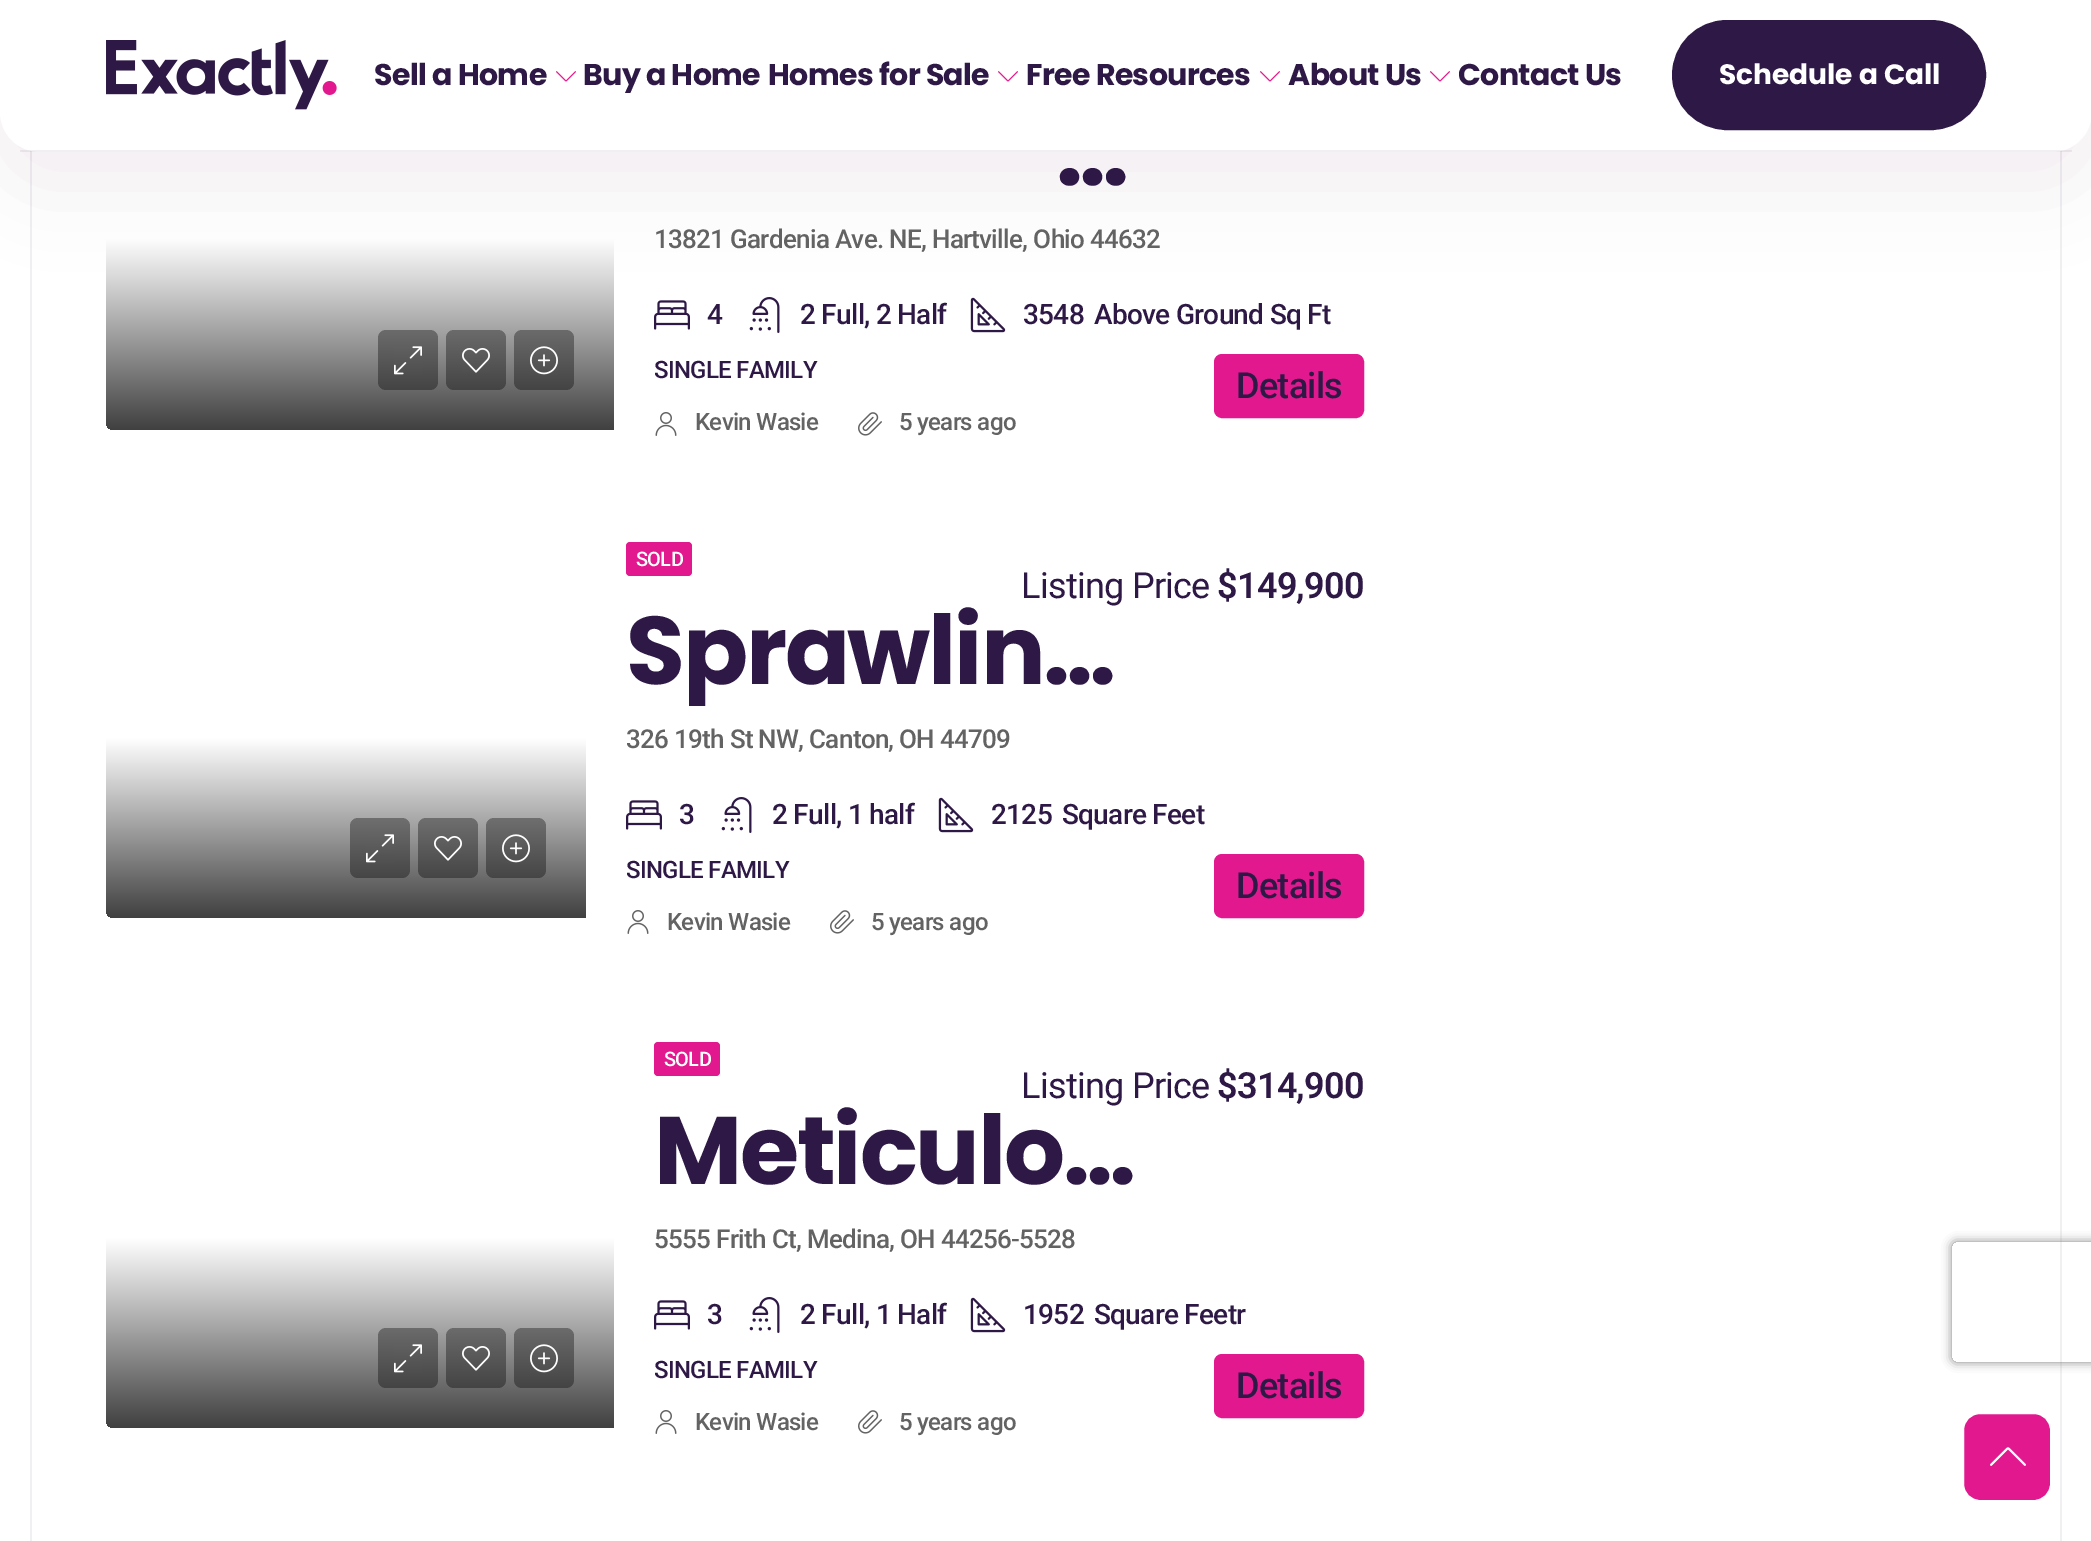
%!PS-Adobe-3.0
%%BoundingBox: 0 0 2091 1541
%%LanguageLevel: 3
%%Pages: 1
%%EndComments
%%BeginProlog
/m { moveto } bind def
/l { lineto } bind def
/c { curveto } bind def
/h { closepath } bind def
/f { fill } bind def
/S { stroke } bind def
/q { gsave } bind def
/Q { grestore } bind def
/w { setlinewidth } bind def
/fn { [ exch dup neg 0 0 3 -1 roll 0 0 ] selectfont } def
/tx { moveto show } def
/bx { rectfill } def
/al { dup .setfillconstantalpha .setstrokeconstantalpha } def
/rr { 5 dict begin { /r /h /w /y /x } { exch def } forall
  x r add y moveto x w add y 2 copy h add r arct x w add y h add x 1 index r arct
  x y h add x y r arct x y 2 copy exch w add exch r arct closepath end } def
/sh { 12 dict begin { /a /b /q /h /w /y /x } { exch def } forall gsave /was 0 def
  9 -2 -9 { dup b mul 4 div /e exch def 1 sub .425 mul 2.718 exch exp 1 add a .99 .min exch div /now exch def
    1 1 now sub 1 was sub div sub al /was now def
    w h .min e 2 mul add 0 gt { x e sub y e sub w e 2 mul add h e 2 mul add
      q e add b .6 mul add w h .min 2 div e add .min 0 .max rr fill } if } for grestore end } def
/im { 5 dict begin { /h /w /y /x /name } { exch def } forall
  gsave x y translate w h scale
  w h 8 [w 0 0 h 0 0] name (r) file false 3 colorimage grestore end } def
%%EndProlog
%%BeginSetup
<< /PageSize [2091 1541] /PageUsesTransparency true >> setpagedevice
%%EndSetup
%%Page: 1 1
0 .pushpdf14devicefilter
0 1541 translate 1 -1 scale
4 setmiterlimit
1 setgray
0 0 2091 1541 bx
0.941 0.937 0.949 setrgbcolor
30 150 2 1391 bx
q 114 48 m 614 48 l 614 430 l 114 430 l 109.5 430 106 426.5 106 422 c 106 56 l 106 51.5 109.5 48 114 48 c h clip newpath
<< /ShadingType 2 /ColorSpace /DeviceRGB /Coords [360 48 360 430] /Extend [true true] /Function << /FunctionType 3 /Domain [0 1] /Functions [<< /FunctionType 2 /Domain [0 1] /C0 [1 1 1] /C1 [1 1 1] /N 1 >> << /FunctionType 2 /Domain [0 1] /C0 [1 1 1] /C1 [0.251 0.251 0.251] /N 1 >>] /Bounds [0.5] /Encode [0 1 0 1] >> >> shfill Q
(image5.raw) 654 300 36 30 im
(image6.raw) 749 297 31 36 im
(image7.raw) 970 297 36 36 im
2060 150 2 1391 bx
0.38 0.02 0.275 setrgbcolor
0 30 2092 152 40 40 0.07 sh
1 setgray
0 0 m 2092 0 l 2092 112 l 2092 134 2074 152 2052 152 c 40 152 l 18 152 0 134 0 112 c h f
0.07 al
0.18 0.098 0.275 setrgbcolor
20 150 2052 2 bx
1 al
(image0.raw) 106 40 231 70 im
/Poppins-Bold 30 fn
374 85 m -0.6 0 (Sell a Home) ashow
(image1.raw) 556 71 20 11 im
583 85 m -0.6 0 (Buy a Home) ashow
768 85 m -0.6 0 (Homes for Sale) ashow
(image1.raw) 998 71 20 11 im
1026 85 m -0.6 0 (Free Resources) ashow
(image1.raw) 1260 71 20 11 im
1288 85 m -0.6 0 (About Us) ashow
(image1.raw) 1430 71 20 11 im
1458 85 m -0.6 0 (Contact Us) ashow
1673 21 312 108 54 rr q f Q
2 w
S
/Poppins-Bold 28 fn
1 setgray
(Schedule a Call) 1719 84 tx
0.35 al
0 setgray
378 330 60 60 8 rr f
1 al
(image2.raw) 394 346 28 29 im
0.35 al
446 330 60 60 8 rr f
1 al
(image3.raw) 462 348 28 25 im
0.35 al
514 330 60 60 8 rr f
1 al
(image4.raw) 530 346 28 29 im
/Poppins-Bold 96 fn
0.18 0.098 0.275 setrgbcolor
1056 185 m -2.25 0 (…) ashow
/Roboto-Medium 26 fn
0.388 setgray
654 248 m -0.7 0 (13821 Gardenia Ave. NE, Hartville, Ohio 44632) ashow
/Roboto-Medium 28 fn
0.18 0.098 0.275 setrgbcolor
707 324 m -0.7 0 (4) ashow
800 324 m -0.7 0 (2 Full, 2 Half) ashow
1023 324 m -0.7 0 (3548) ashow
1094 324 m -0.7 0 (Above Ground Sq Ft) ashow
/Roboto-Medium 24 fn
654 378 m -0.7 0 (SINGLE FAMILY) ashow
0.886 0.094 0.561 setrgbcolor
1215 355 148 62 7 rr q f Q
S
/Roboto-Medium 36 fn
0.18 0.098 0.275 setrgbcolor
1236 398 m -0.7 0 (Details) ashow
(image8.raw) 655 412 22 24 im
/Roboto-Medium 24 fn
0.388 setgray
695 430 m -0.7 0 (Kevin Wasie) ashow
(image9.raw) 858 412 24 24 im
899 430 m -0.7 0 (5 years ago) ashow
q 114 558 m 586 558 l 586 918 l 114 918 l 109.5 918 106 914.5 106 910 c 106 566 l 106 561.5 109.5 558 114 558 c h clip newpath
<< /ShadingType 2 /ColorSpace /DeviceRGB /Coords [346 558 346 918] /Extend [true true] /Function << /FunctionType 3 /Domain [0 1] /Functions [<< /FunctionType 2 /Domain [0 1] /C0 [1 1 1] /C1 [1 1 1] /N 1 >> << /FunctionType 2 /Domain [0 1] /C0 [1 1 1] /C1 [0.251 0.251 0.251] /N 1 >>] /Bounds [0.5] /Encode [0 1 0 1] >> >> shfill Q
0.35 al
0 setgray
350 818 60 60 8 rr f
1 al
(image10.raw) 366 834 28 29 im
0.35 al
418 818 60 60 8 rr f
1 al
(image11.raw) 434 836 28 25 im
0.35 al
486 818 60 60 8 rr f
1 al
(image12.raw) 502 834 28 29 im
0.886 0.094 0.561 setrgbcolor
626 542 66 34 4 rr f
/Roboto-Medium 20 fn
1 setgray
636 566 m -0.7 0 (SOLD) ashow
/Roboto-Regular 36 fn
0.18 0.098 0.275 setrgbcolor
1021 598 m -0.7 0 (Listing Price) ashow
/Roboto-SemiBold 36 fn
1217 598 m -0.7 0 ($149,900) ashow
q
626 600 500 106 rectclip
/Poppins-Bold 96 fn
626 684 m -2.25 0 (Sprawlin…) ashow
Q
/Roboto-Medium 26 fn
0.388 setgray
626 748 m -0.7 0 (326 19th St NW, Canton, OH 44709) ashow
(image5.raw) 626 800 36 30 im
/Roboto-Medium 28 fn
0.18 0.098 0.275 setrgbcolor
679 824 m -0.7 0 (3) ashow
(image6.raw) 721 797 31 36 im
772 824 m -0.7 0 (2 Full, 1 half) ashow
(image7.raw) 938 797 36 36 im
991 824 m -0.7 0 (2125) ashow
1062 824 m -0.7 0 (Square Feet) ashow
/Roboto-Medium 24 fn
626 878 m -0.7 0 (SINGLE FAMILY) ashow
0.886 0.094 0.561 setrgbcolor
1215 855 148 62 7 rr q f Q
S
/Roboto-Medium 36 fn
0.18 0.098 0.275 setrgbcolor
1236 898 m -0.7 0 (Details) ashow
(image8.raw) 627 910 22 24 im
/Roboto-Medium 24 fn
0.388 setgray
667 930 m -0.7 0 (Kevin Wasie) ashow
(image9.raw) 830 910 24 24 im
871 930 m -0.7 0 (5 years ago) ashow
q 114 1048 m 614 1048 l 614 1428 l 114 1428 l 109.5 1428 106 1424.5 106 1420 c 106 1056 l 106 1051.5 109.5 1048 114 1048 c h clip newpath
<< /ShadingType 2 /ColorSpace /DeviceRGB /Coords [360 1048 360 1428] /Extend [true true] /Function << /FunctionType 3 /Domain [0 1] /Functions [<< /FunctionType 2 /Domain [0 1] /C0 [1 1 1] /C1 [1 1 1] /N 1 >> << /FunctionType 2 /Domain [0 1] /C0 [1 1 1] /C1 [0.251 0.251 0.251] /N 1 >>] /Bounds [0.5] /Encode [0 1 0 1] >> >> shfill Q
0.35 al
0 setgray
378 1328 60 60 8 rr f
1 al
(image2.raw) 394 1344 28 29 im
0.35 al
446 1328 60 60 8 rr f
1 al
(image3.raw) 462 1346 28 25 im
0.35 al
514 1328 60 60 8 rr f
1 al
(image4.raw) 530 1344 28 29 im
0.886 0.094 0.561 setrgbcolor
654 1042 66 34 4 rr f
/Roboto-Medium 20 fn
1 setgray
664 1066 m -0.7 0 (SOLD) ashow
/Roboto-Regular 36 fn
0.18 0.098 0.275 setrgbcolor
1021 1098 m -0.7 0 (Listing Price) ashow
/Roboto-SemiBold 36 fn
1217 1098 m -0.7 0 ($314,900) ashow
/Poppins-Bold 96 fn
654 1184 m -2.25 0 (Meticulo…) ashow
/Roboto-Medium 26 fn
0.388 setgray
654 1248 m -0.7 0 (5555 Frith Ct, Medina, OH 44256-5528) ashow
(image5.raw) 654 1300 36 30 im
/Roboto-Medium 28 fn
0.18 0.098 0.275 setrgbcolor
707 1324 m -0.7 0 (3) ashow
(image6.raw) 749 1297 31 36 im
800 1324 m -0.7 0 (2 Full, 1 Half) ashow
(image7.raw) 970 1297 36 36 im
1023 1324 m -0.7 0 (1952) ashow
1094 1324 m -0.7 0 (Square Feetr) ashow
/Roboto-Medium 24 fn
654 1378 m -0.7 0 (SINGLE FAMILY) ashow
0.886 0.094 0.561 setrgbcolor
1215 1355 148 62 7 rr q f Q
S
/Roboto-Medium 36 fn
0.18 0.098 0.275 setrgbcolor
1236 1398 m -0.7 0 (Details) ashow
(image8.raw) 655 1410 22 24 im
/Roboto-Medium 24 fn
0.388 setgray
695 1430 m -0.7 0 (Kevin Wasie) ashow
(image9.raw) 858 1410 24 24 im
899 1430 m -0.7 0 (5 years ago) ashow
q
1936 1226 m 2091 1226 l 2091 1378 l 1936 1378 l h 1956 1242 m 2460 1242 l 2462 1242 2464 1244 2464 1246 c 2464 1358 l 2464 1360 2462 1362 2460 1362 c 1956 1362 l 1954 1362 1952 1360 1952 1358 c 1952 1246 l 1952 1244 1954 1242 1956 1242 c h eoclip newpath
0.502 setgray
1952 1242 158 120 4 5 1 sh
Q
0.886 0.094 0.561 setrgbcolor
1963 1413 88 88 17 rr q f Q
1 setgray
S
(image13.raw) 1990 1447 36 19 im
.poppdf14devicefilter showpage
%%EOF
